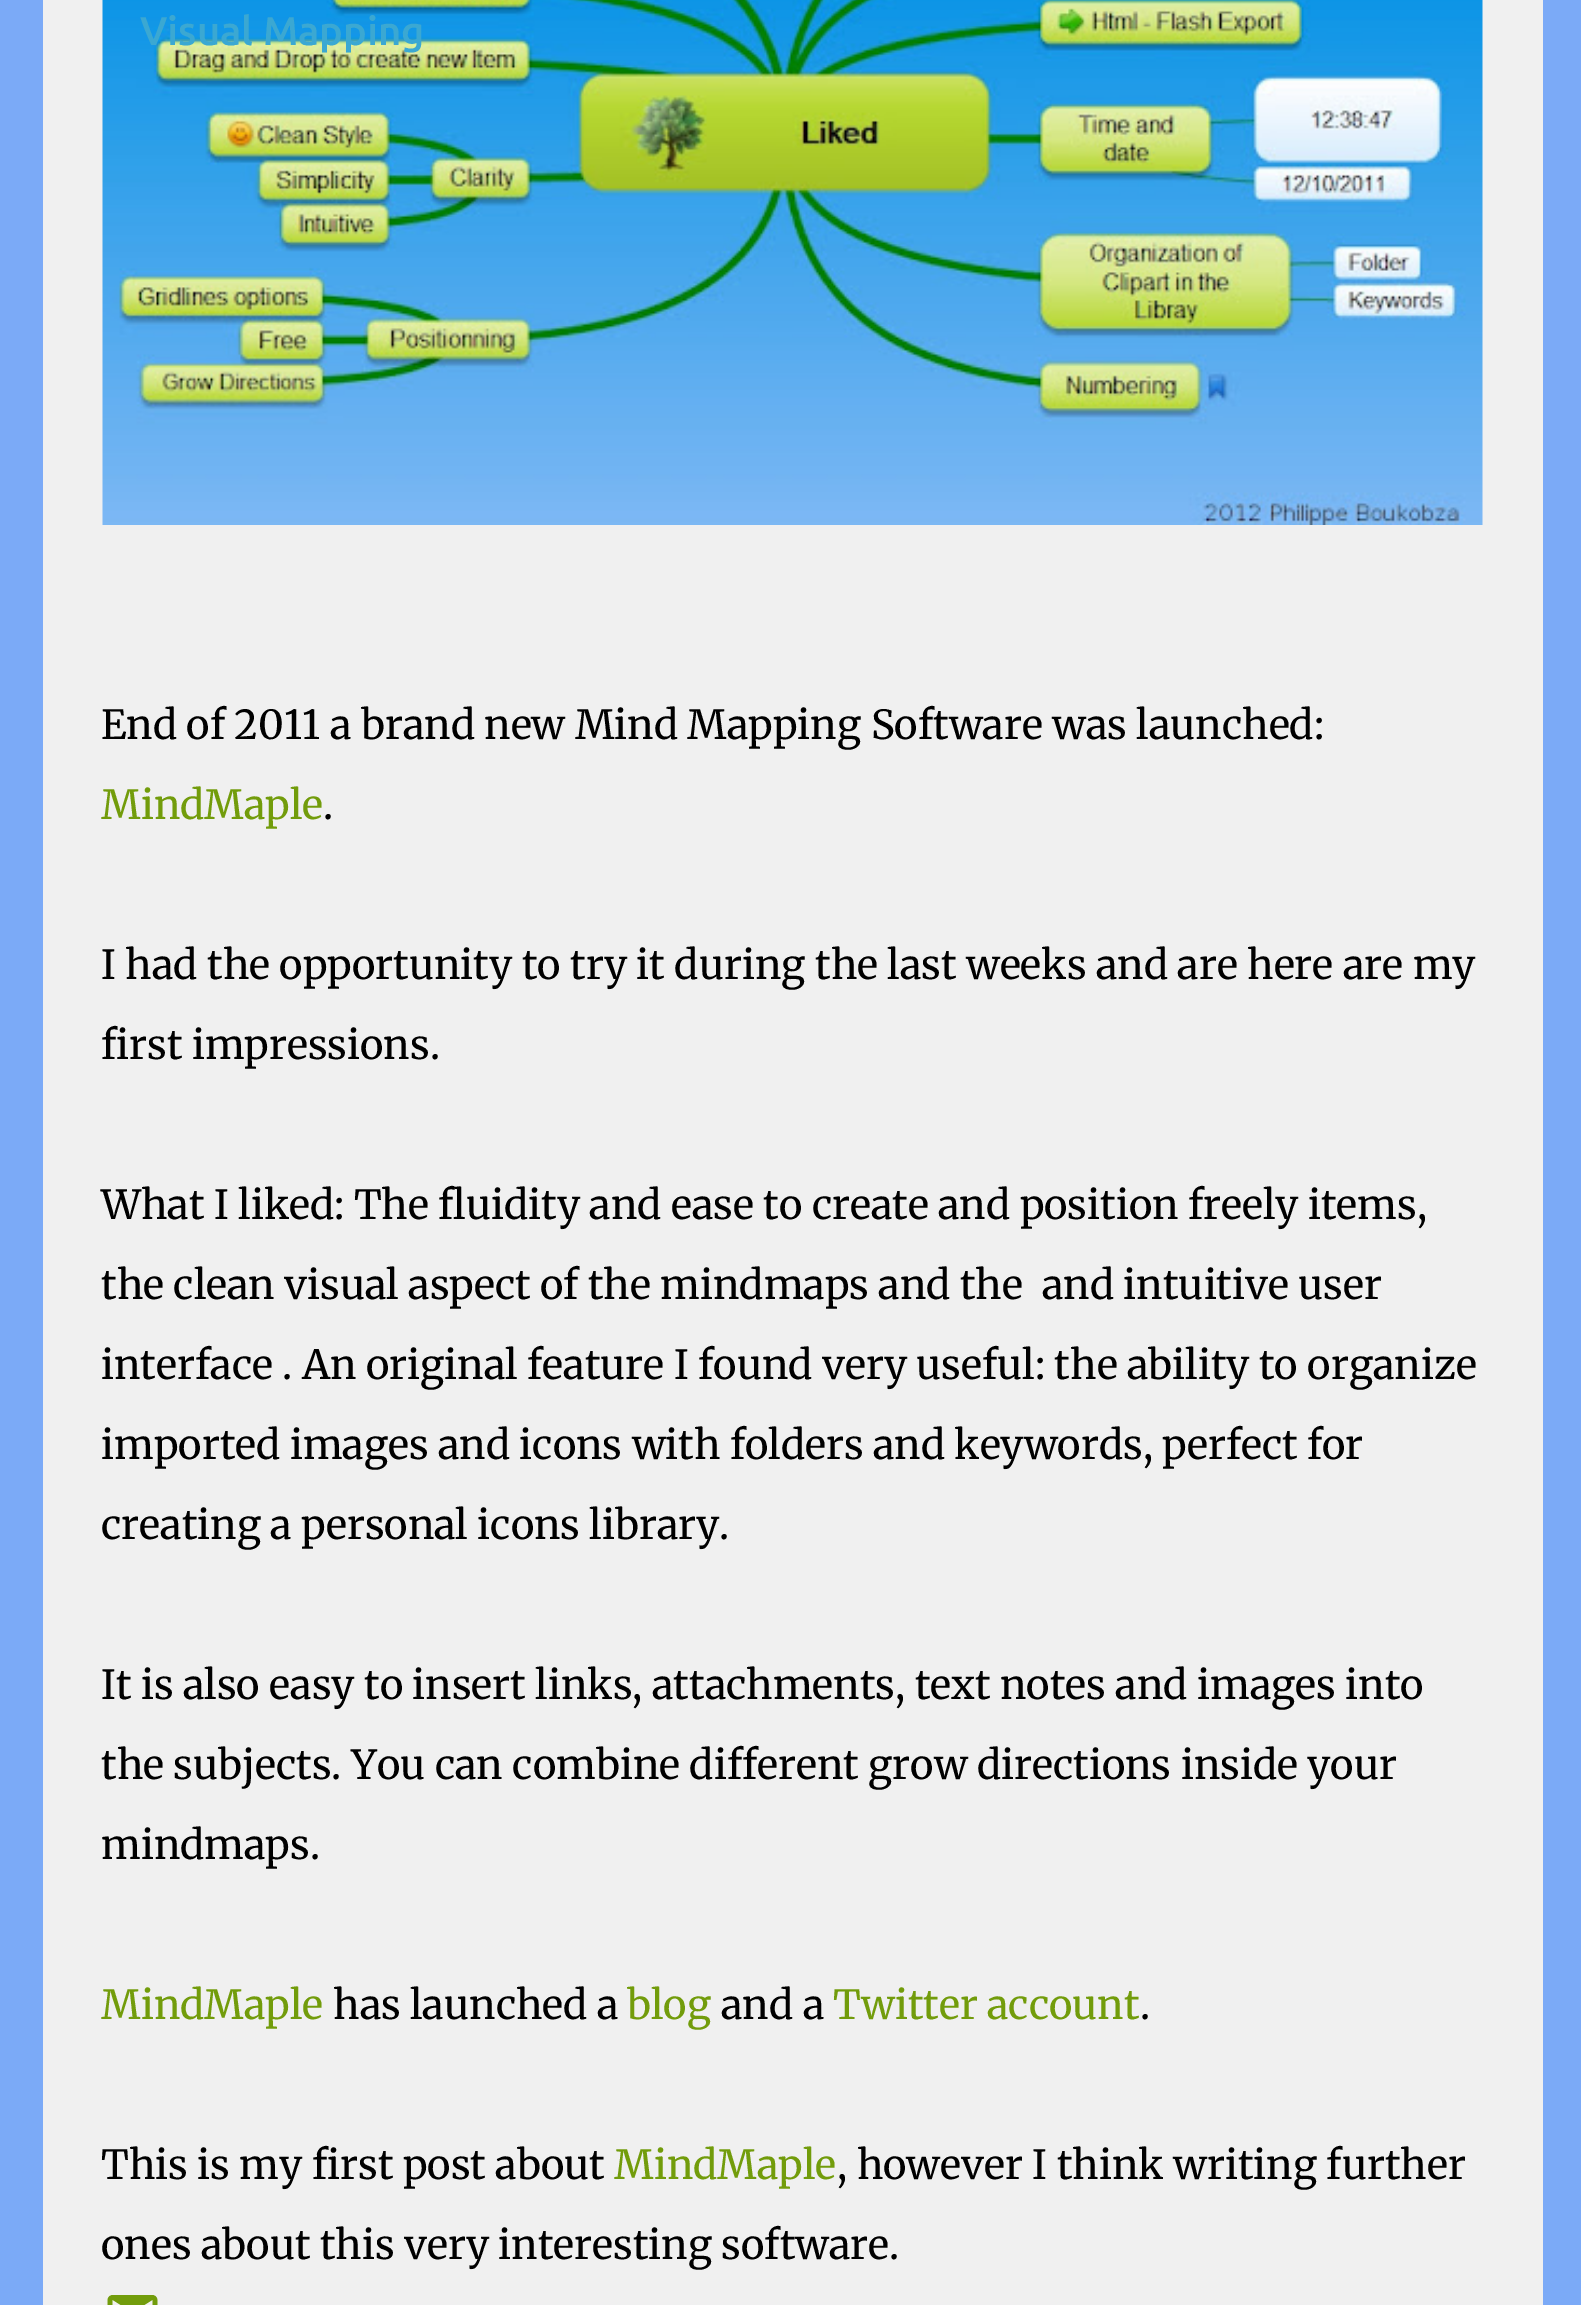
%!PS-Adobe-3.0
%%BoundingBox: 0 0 1581 2305
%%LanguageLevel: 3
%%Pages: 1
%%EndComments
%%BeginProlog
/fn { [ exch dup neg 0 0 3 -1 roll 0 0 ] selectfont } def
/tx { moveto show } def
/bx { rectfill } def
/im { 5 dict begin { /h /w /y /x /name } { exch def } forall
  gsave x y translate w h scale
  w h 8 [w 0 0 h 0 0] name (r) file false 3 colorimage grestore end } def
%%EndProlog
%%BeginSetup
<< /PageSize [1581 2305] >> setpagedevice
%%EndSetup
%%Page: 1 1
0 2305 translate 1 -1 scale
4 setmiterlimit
0.482 0.667 0.969 setrgbcolor
0 0 1581 2305 bx
0.941 setgray
43 0 1500 2305 bx
(image0.raw) 102 0 1381 525 im
/Ubuntu-Medium 40 fn
0.231 0.659 0.824 setrgbcolor
(Visual Mapping) 140 45 tx
/Merriweather-Light 40 fn
0 setgray
(End of 2011 a brand new Mind Mapping Software was launched:) 101 739 tx
0.447 0.612 0.043 setrgbcolor
(MindMaple) 101 819 tx
0 setgray
(.) 323 819 tx
(I had the opportunity to try it during the last weeks and are here are my) 101 979 tx
(first impressions.) 101 1059 tx
(What I liked: The fluidity and ease to create and position freely items,) 101 1219 tx
(the clean visual aspect of the mindmaps and the  and intuitive user) 101 1299 tx
(interface . An original feature I found very useful: the ability to organize) 101 1379 tx
(imported images and icons with folders and keywords, perfect for) 101 1459 tx
(creating a personal icons library.) 101 1539 tx
(It is also easy to insert links, attachments, text notes and images into) 101 1699 tx
(the subjects. You can combine different grow directions inside your) 101 1779 tx
(mindmaps.) 101 1859 tx
0.447 0.612 0.043 setrgbcolor
(MindMaple) 101 2019 tx
0 setgray
(has launched a) 333 2019 tx
0.447 0.612 0.043 setrgbcolor
(blog) 627 2019 tx
0 setgray
(and a) 721 2019 tx
0.447 0.612 0.043 setrgbcolor
(Twitter account) 833 2019 tx
0 setgray
(.) 1140 2019 tx
(This is my first post about) 101 2179 tx
0.447 0.612 0.043 setrgbcolor
(MindMaple) 614 2179 tx
0 setgray
(, however I think writing further) 837 2179 tx
(ones about this very interesting software.) 101 2259 tx
(image1.raw) 107 2295 51 10 im
showpage
%%EOF
